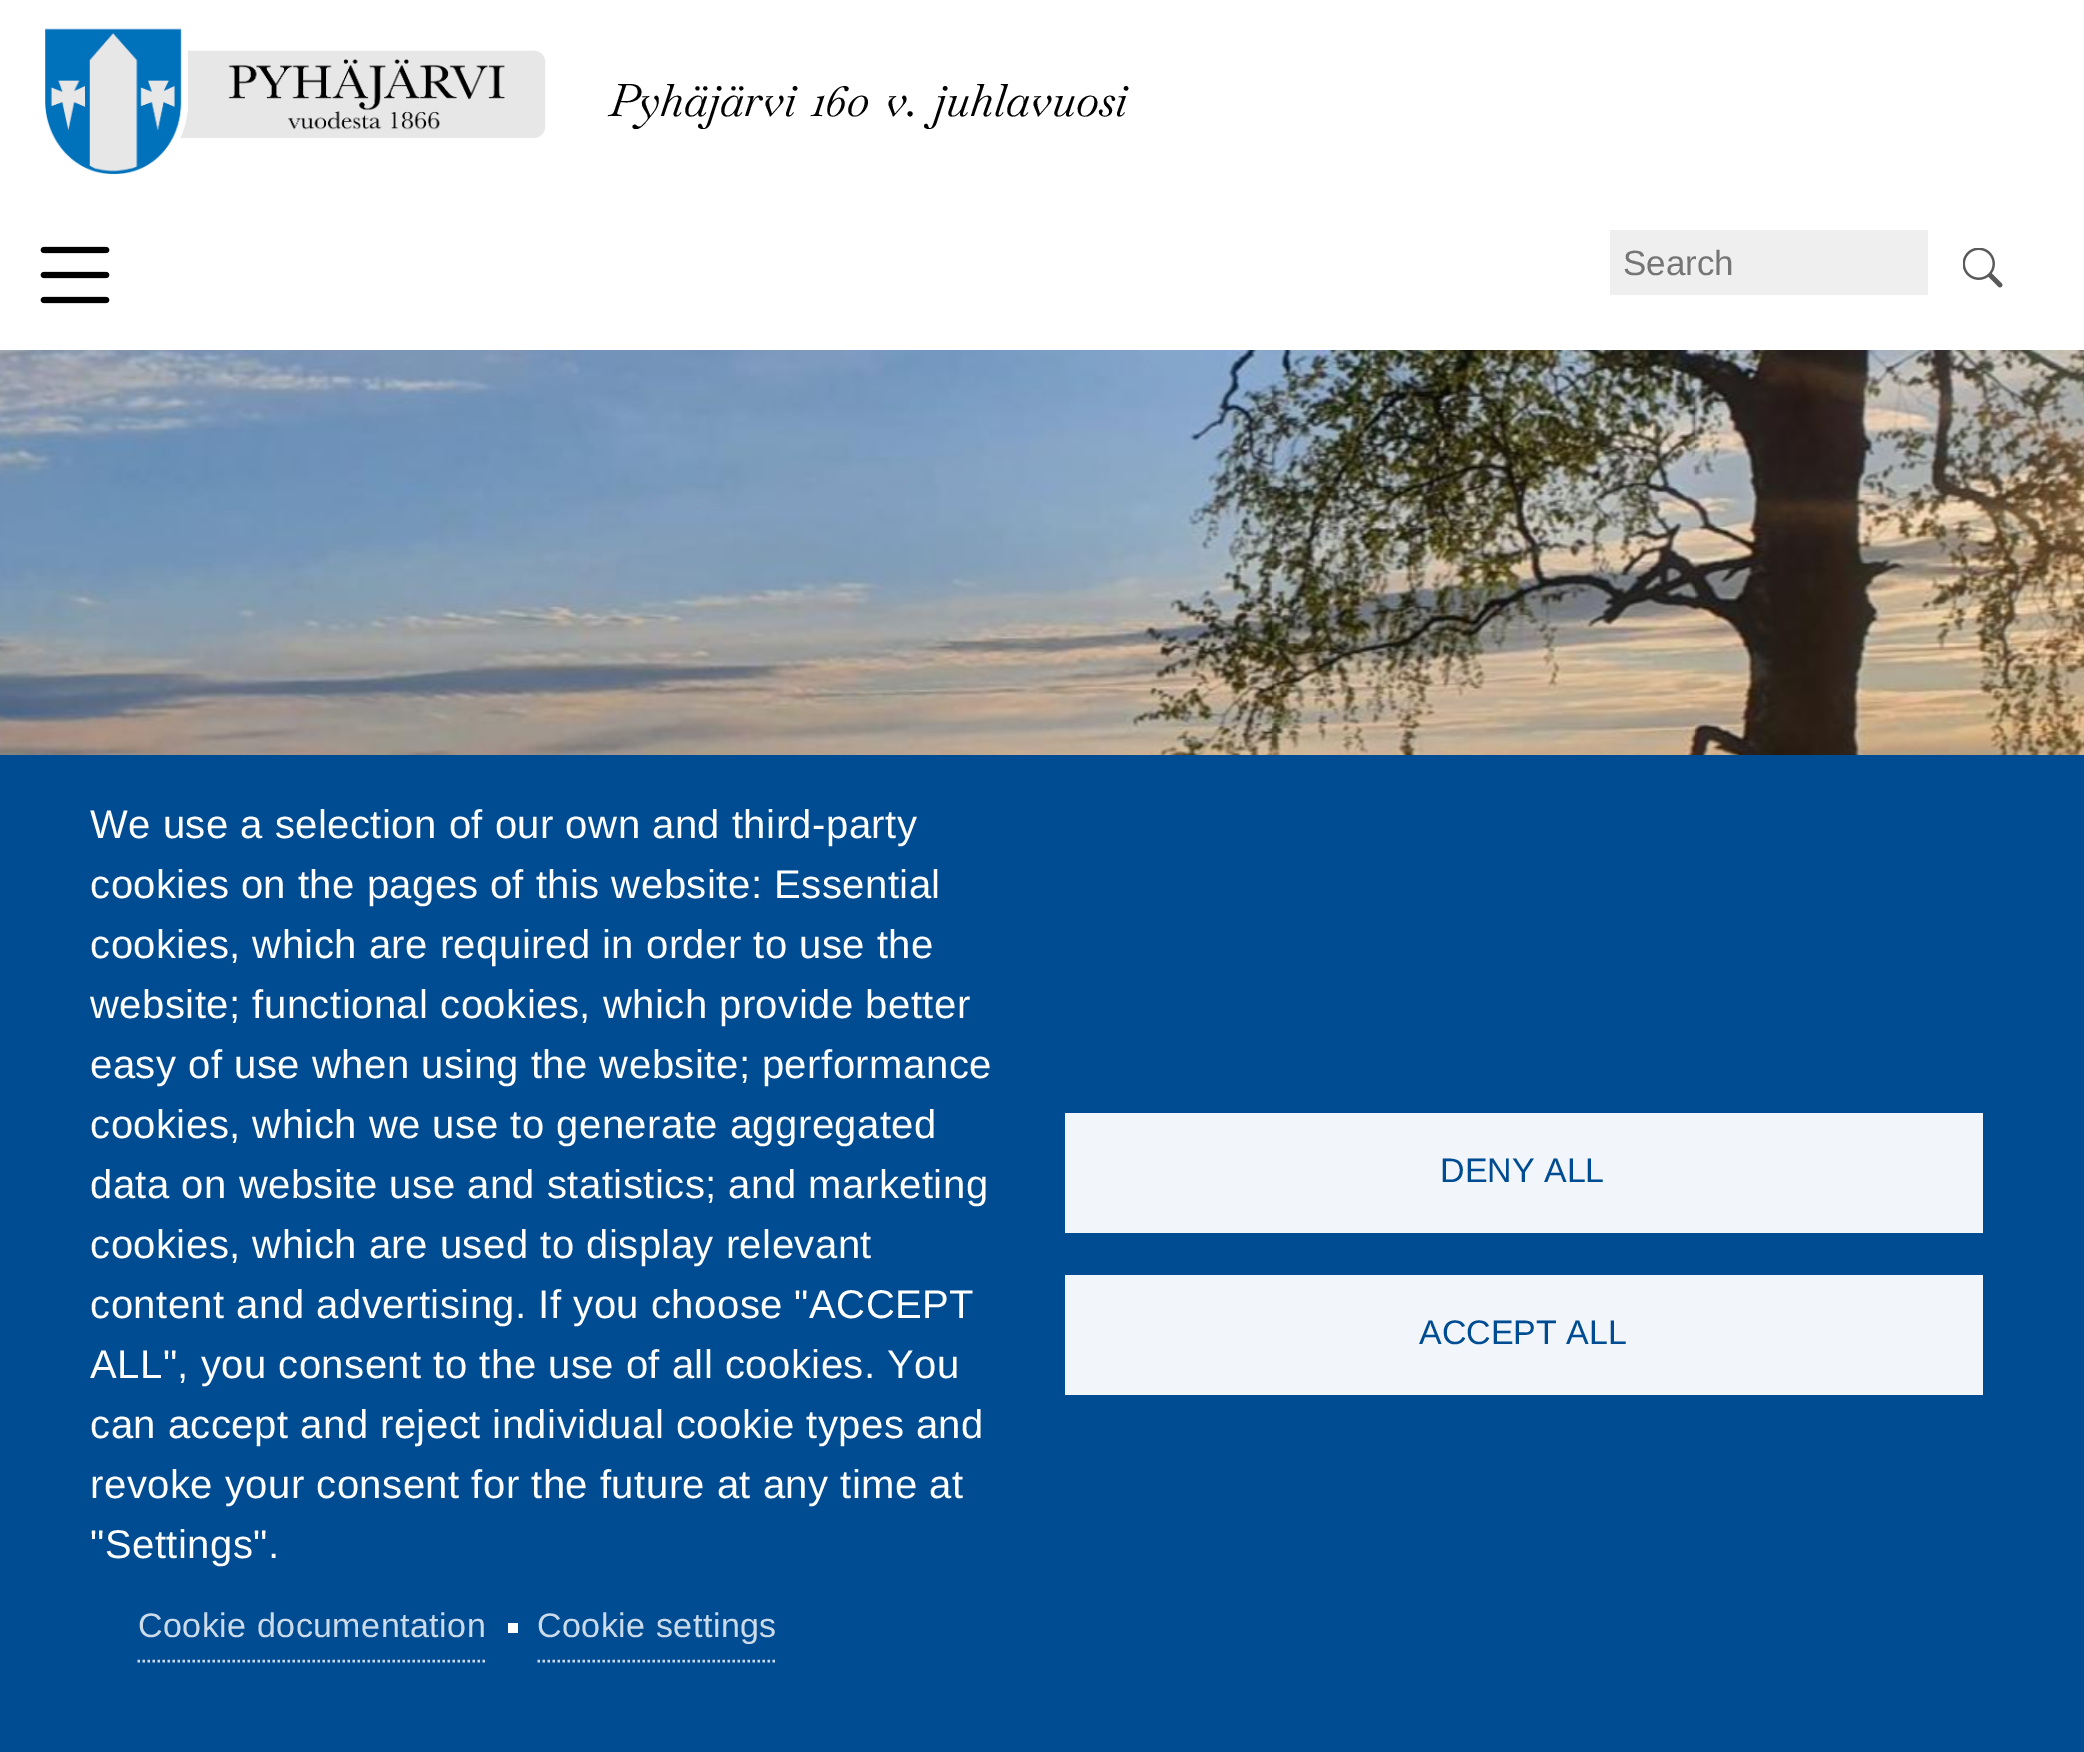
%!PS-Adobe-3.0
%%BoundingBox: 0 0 2084 1752
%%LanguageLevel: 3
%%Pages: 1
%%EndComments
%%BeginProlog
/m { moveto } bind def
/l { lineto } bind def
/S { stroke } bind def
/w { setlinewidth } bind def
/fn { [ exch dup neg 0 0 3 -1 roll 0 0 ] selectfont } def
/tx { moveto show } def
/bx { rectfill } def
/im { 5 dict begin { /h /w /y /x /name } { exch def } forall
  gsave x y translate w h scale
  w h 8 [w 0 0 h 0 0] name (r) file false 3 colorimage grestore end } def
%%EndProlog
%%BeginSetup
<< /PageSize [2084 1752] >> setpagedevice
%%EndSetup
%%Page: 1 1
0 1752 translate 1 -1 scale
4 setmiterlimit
1 setgray
0 0 2084 1752 bx
(image0.raw) 40 246 70 58 im
(image1.raw) 45 28 501 147 im
/Baskervville-Italic 45 fn
0 setgray
609 116 m 4.5 0 32 (Pyhäjärvi 160 v. juhlavuosi) widthshow
0.937 setgray
1610 230 318 65 bx
/LiberationSans-Regular 35 fn
0.459 setgray
(Search) 1623 275 tx
(image2.raw) 1963 248 40 40 im
(image3.raw) 0 350 2084 405 im
0 0.298 0.576 setrgbcolor
0 755 2084 997 bx
/LiberationSans-Regular 40 fn
1 setgray
90 838 m 0.5 0 (We use a selection of our own and third-party) ashow
90 898 m 0.5 0 (cookies on the pages of this website: Essential) ashow
90 958 m 0.5 0 (cookies, which are required in order to use the) ashow
90 1018 m 0.5 0 (website; functional cookies, which provide better) ashow
90 1078 m 0.5 0 (easy of use when using the website; performance) ashow
90 1138 m 0.5 0 (cookies, which we use to generate aggregated) ashow
90 1198 m 0.5 0 (data on website use and statistics; and marketing) ashow
90 1258 m 0.5 0 (cookies, which are used to display relevant) ashow
90 1318 m 0.5 0 (content and advertising. If you choose "ACCEPT) ashow
90 1378 m 0.5 0 (ALL", you consent to the use of all cookies. You) ashow
90 1438 m 0.5 0 (can accept and reject individual cookie types and) ashow
90 1498 m 0.5 0 (revoke your consent for the future at any time at) ashow
90 1558 m 0.5 0 ("Settings".) ashow
0.8 0.859 0.914 setrgbcolor
2.5 w
[2.5 2.5] 0 setdash
137.5 1661 m 485 1661 l S
/LiberationSans-Regular 34 fn
138 1637 m 0.5 0 (Cookie documentation) ashow
1 setgray
508 1623 10 10 bx
0.8 0.859 0.914 setrgbcolor
537.5 1661 m 777.5 1661 l S
537 1637 m 0.5 0 (Cookie settings) ashow
0.949 0.965 0.98 setrgbcolor
1065 1113 918 120 bx
0 0.298 0.576 setrgbcolor
(DENY ALL) 1440 1182 tx
0.949 0.965 0.98 setrgbcolor
1065 1275 918 120 bx
0 0.298 0.576 setrgbcolor
(ACCEPT ALL) 1419 1344 tx
showpage
%%EOF
